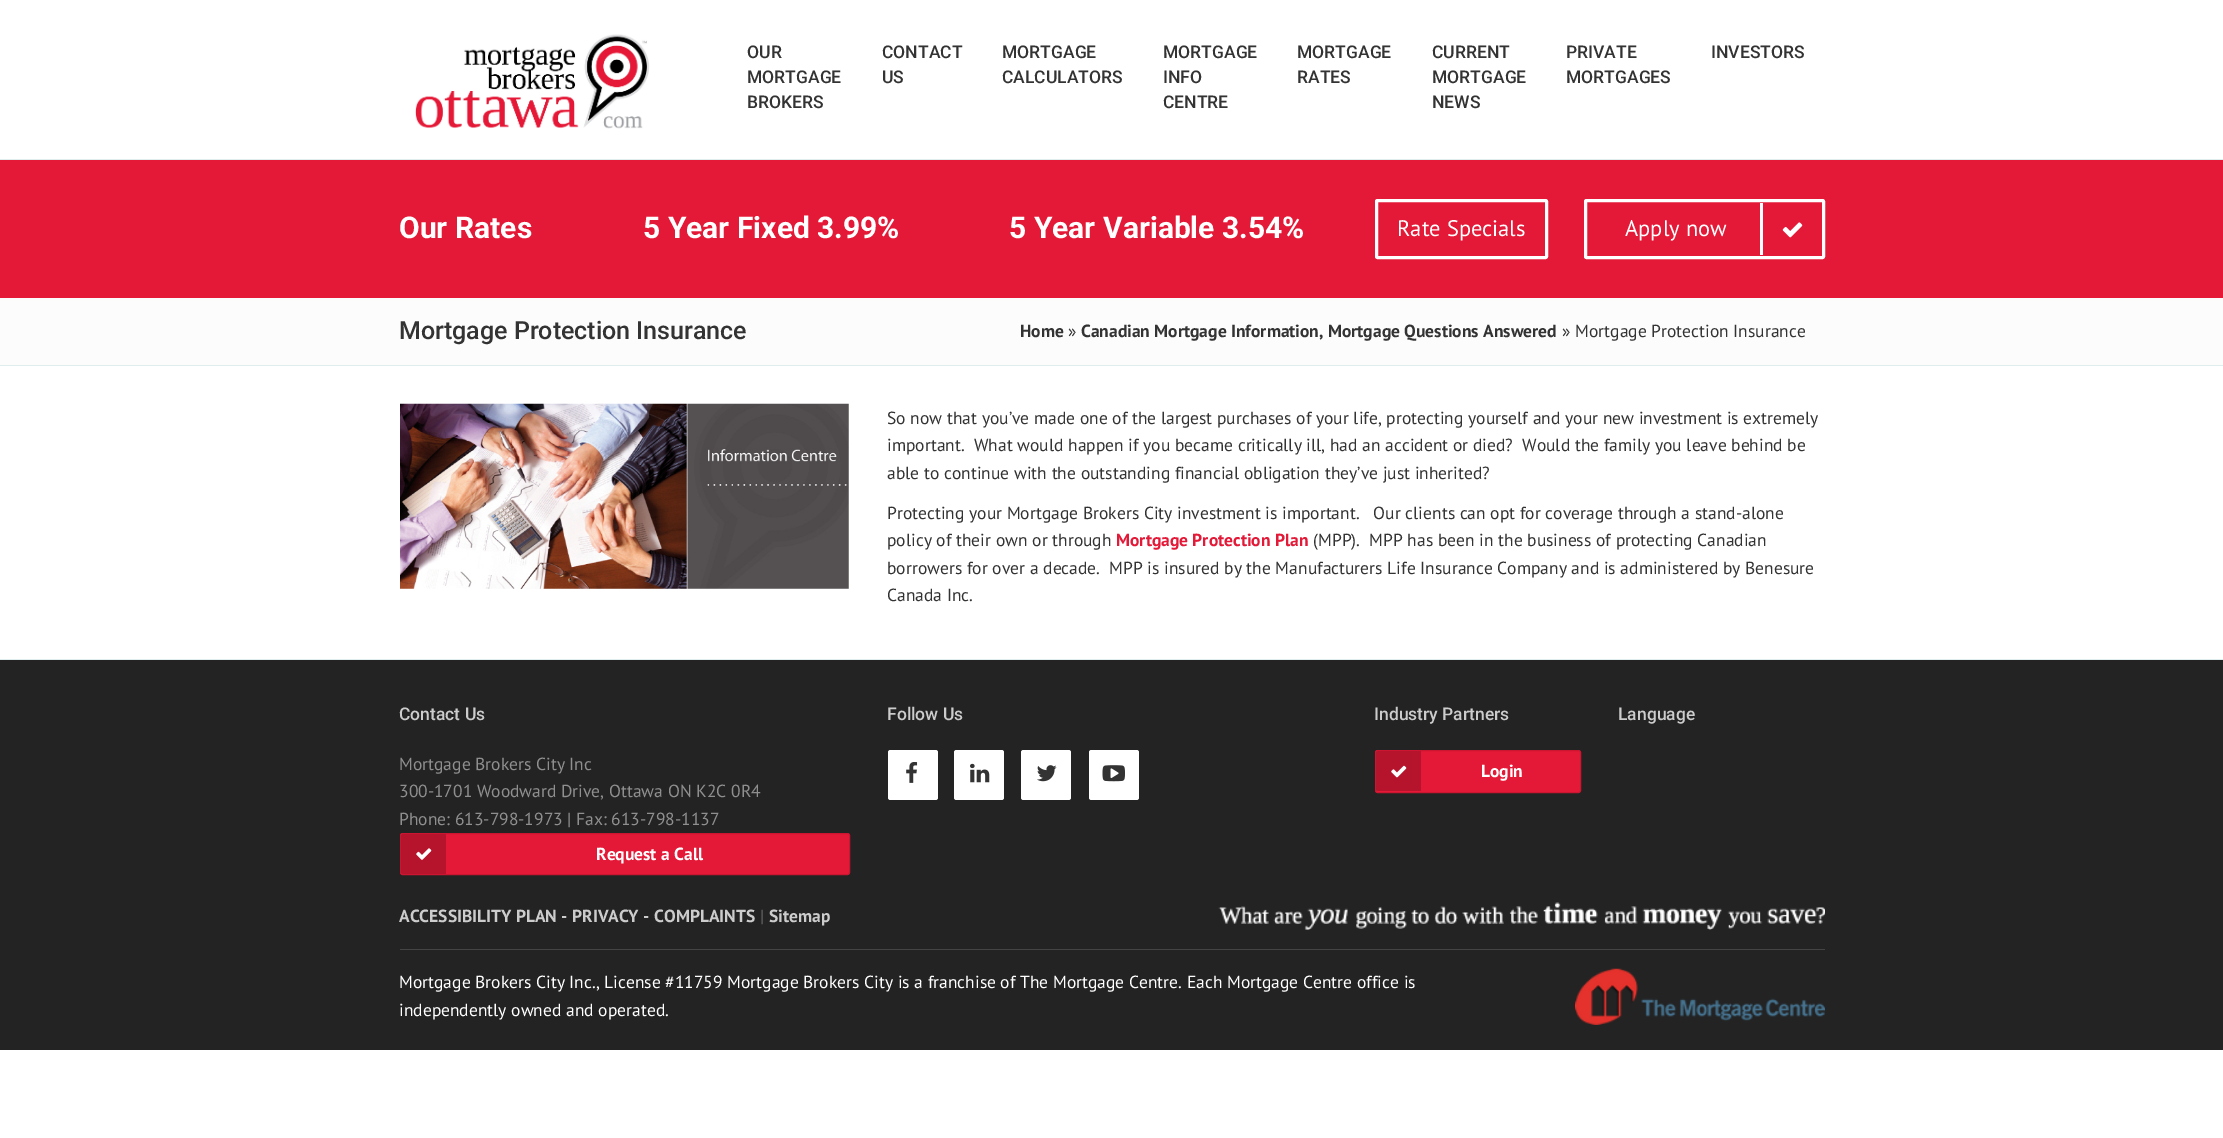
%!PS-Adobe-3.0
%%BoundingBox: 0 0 2223 1138
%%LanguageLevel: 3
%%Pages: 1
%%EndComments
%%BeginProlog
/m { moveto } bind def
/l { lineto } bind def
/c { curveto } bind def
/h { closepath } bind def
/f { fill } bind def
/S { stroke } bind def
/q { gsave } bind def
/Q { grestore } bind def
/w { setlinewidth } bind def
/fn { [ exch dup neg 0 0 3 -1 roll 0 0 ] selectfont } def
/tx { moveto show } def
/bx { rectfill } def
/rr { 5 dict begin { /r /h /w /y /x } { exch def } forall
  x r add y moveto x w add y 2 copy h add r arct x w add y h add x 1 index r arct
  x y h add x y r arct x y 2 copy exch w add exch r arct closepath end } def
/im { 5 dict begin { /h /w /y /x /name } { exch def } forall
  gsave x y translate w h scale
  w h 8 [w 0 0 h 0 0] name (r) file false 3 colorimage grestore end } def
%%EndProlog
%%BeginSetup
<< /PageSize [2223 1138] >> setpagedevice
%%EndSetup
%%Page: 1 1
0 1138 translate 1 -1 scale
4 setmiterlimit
1 setgray
0 0 2223 1138 bx
0.878 0.929 0.929 setrgbcolor
0 159 2223 1 bx
(image0.raw) 415 34 235 95 im
/Roboto-Medium 17.5 fn
0.2 setgray
(OUR) 747 58 tx
(MORTGAGE) 747 83 tx
(BROKERS) 747 108 tx
(CONTACT) 882 58 tx
(US) 882 83 tx
(MORTGAGE) 1002 58 tx
(CALCULATORS) 1002 83 tx
(MORTGAGE) 1163 58 tx
(INFO) 1163 83 tx
(CENTRE) 1163 108 tx
(MORTGAGE) 1297 58 tx
(RATES) 1297 83 tx
(CURRENT) 1432 58 tx
(MORTGAGE) 1432 83 tx
(NEWS) 1432 108 tx
(PRIVATE) 1566 58 tx
(MORTGAGES) 1566 83 tx
(INVESTORS) 1711 58 tx
0.89 0.098 0.216 setrgbcolor
0 160 2223 138 bx
/Roboto-Bold 30 fn
1 setgray
(Our Rates) 399 238 tx
(5 Year Fixed 3.99%) 643 238 tx
(5 Year Variable 3.54%) 1009 238 tx
3 w
1376.5 200.5 170 57 1 rr S
/PTSans-Regular 22.5 fn
(Rate Specials) 1397 236 tx
1585.5 200.5 238 57 1 rr S
(Apply now) 1625 236 tx
1760 203 3 52 bx
(image1.raw) 1782 222 21 16 im
0.988 setgray
0 298 2223 67 bx
0.878 0.929 0.929 setrgbcolor
0 365 2223 1 bx
/Roboto-Medium 25 fn
0.2 setgray
(Mortgage Protection Insurance) 399 339 tx
/PTSans-Bold 17.5 fn
(Home) 1020 337 tx
/PTSans-Regular 17.5 fn
(») 1068 337 tx
/PTSans-Bold 17.5 fn
(Canadian Mortgage Information, Mortgage Questions Answered) 1081 337 tx
/PTSans-Regular 17.5 fn
(» Mortgage Protection Insurance) 1562 337 tx
0.878 0.929 0.929 setrgbcolor
0 659 2223 1 bx
(image2.raw) 400 403 449 186 im
0.2 setgray
(So now that you’ve made one of the largest purchases of your life, protecting yourself and your new investment is extremely) 887 424 tx
(important.  What would happen if you became critically ill, had an accident or died?  Would the family you leave behind be) 887 451 tx
(able to continue with the outstanding financial obligation they’ve just inherited?) 887 479 tx
(Protecting your Mortgage Brokers City investment is important.   Our clients can opt for coverage through a stand-alone) 887 519 tx
(policy of their own or through) 887 546 tx
/PTSans-Bold 17.5 fn
0.89 0.098 0.216 setrgbcolor
(Mortgage Protection Plan) 1116 546 tx
/PTSans-Regular 17.5 fn
0.2 setgray
(\(MPP\).  MPP has been in the business of protecting Canadian) 1313 546 tx
(borrowers for over a decade.  MPP is insured by the Manufacturers Life Insurance Company and is administered by Benesure) 887 574 tx
(Canada Inc.) 887 601 tx
0.137 setgray
0 660 2223 390 bx
/Roboto-Medium 17.5 fn
0.8 setgray
(Contact Us) 399 720 tx
/PTSans-Regular 17.5 fn
0.561 setgray
(Mortgage Brokers City Inc) 399 770 tx
(300-1701 Woodward Drive, Ottawa ON K2C 0R4) 399 797 tx
(Phone: 613-798-1973 | Fax: 613-798-1137) 399 825 tx
0.89 0.098 0.216 setrgbcolor
400.5 833.5 449 41 2 rr q f Q
0.8 0.086 0.192 setrgbcolor
1 w
S
0.71 0.078 0.173 setrgbcolor
403.5 834 m 446 834 l 446 874 l 403.5 874 l 402 874 401 873 401 871.5 c 401 836.5 l 401 835 402 834 403.5 834 c h f
(image3.raw) 416 848 16 12 im
/PTSans-Bold 17.5 fn
1 setgray
(Request a Call) 596 860 tx
/Roboto-Medium 17.5 fn
0.8 setgray
(Follow Us) 887 720 tx
1 setgray
888 750 50 50 2.5 rr f
(image4.raw) 906 762 12 21 im
954 750 50 50 2.5 rr f
(image5.raw) 970 763 20 20 im
1021 750 50 50 2.5 rr f
(image6.raw) 1037 765 20 17 im
1089 750 50 50 2.5 rr f
(image7.raw) 1102 765 23 17 im
0.8 setgray
(Industry Partners) 1374 720 tx
0.89 0.098 0.216 setrgbcolor
1375.5 750.5 205 42 2 rr q f Q
0.8 0.086 0.192 setrgbcolor
S
0.71 0.078 0.173 setrgbcolor
1378.5 751 m 1421 751 l 1421 791 l 1378.5 791 l 1377 791 1376 790 1376 788.5 c 1376 753.5 l 1376 752 1377 751 1378.5 751 c h f
(image8.raw) 1391 765 16 13 im
/PTSans-Bold 17.5 fn
1 setgray
(Login) 1481 777 tx
/Roboto-Medium 17.5 fn
0.8 setgray
(Language) 1618 720 tx
/PTSans-Bold 17.5 fn
(ACCESSIBILITY PLAN - PRIVACY - COMPLAINTS) 399 922 tx
/PTSans-Regular 17.5 fn
0.38 setgray
(|) 760 922 tx
/PTSans-Bold 17.5 fn
0.8 setgray
(Sitemap) 769 922 tx
(image9.raw) 1218 902 607 28 im
0.267 setgray
400 949 1425 1 bx
/PTSans-Regular 17.5 fn
1 setgray
(Mortgage Brokers City Inc., License #11759 Mortgage Brokers City is a franchise of The Mortgage Centre. Each Mortgage Centre office is) 399 988 tx
(independently owned and operated.) 399 1016 tx
(image10.raw) 1575 968 250 57 im
showpage
%%EOF
